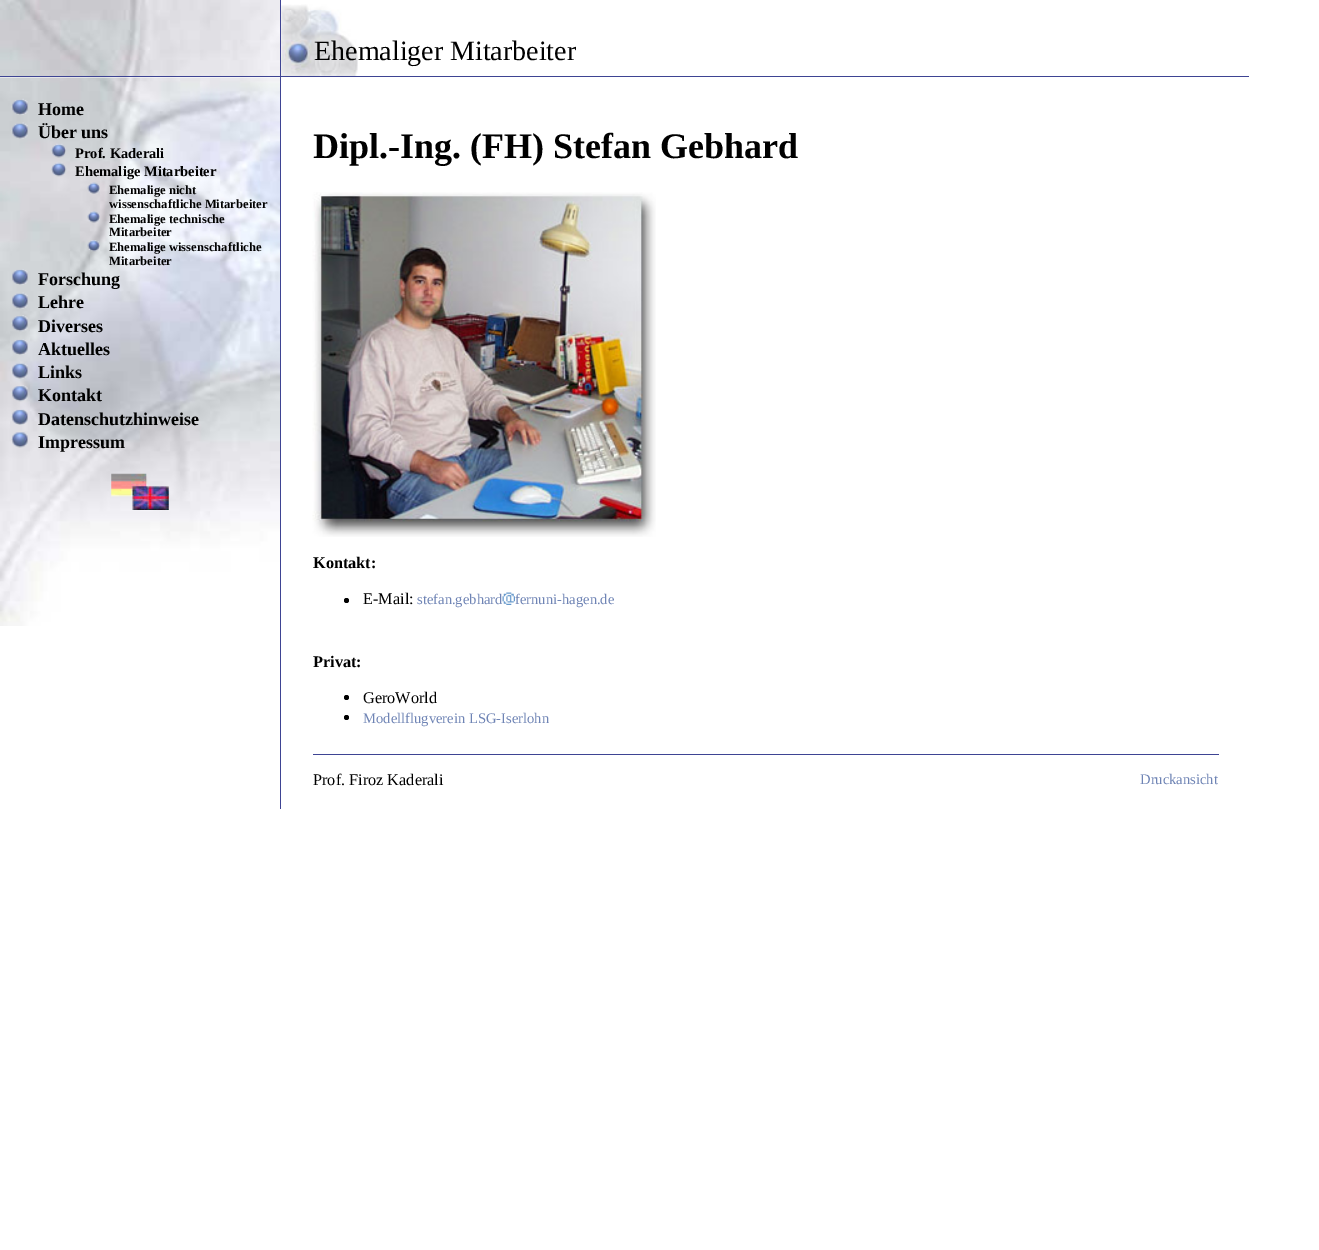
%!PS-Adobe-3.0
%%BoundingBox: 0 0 1319 1250
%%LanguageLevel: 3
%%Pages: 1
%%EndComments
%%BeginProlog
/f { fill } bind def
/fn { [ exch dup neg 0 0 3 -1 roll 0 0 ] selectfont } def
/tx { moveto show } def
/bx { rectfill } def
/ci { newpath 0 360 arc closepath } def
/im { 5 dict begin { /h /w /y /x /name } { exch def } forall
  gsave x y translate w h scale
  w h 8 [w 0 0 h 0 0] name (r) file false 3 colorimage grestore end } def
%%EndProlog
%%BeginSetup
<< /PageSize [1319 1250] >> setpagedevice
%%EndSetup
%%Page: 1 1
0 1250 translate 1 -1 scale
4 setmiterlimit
1 setgray
0 0 1319 1250 bx
(image0.raw) 0 0 280 76 im
0.243 0.267 0.576 setrgbcolor
280 0 1 809 bx
0 76 1249 1 bx
(image1.raw) 281 4 77 72 im
/LiberationSerif-Regular 28 fn
0 setgray
(Ehemaliger Mitarbeiter) 314 60 tx
(image2.raw) 0 77 280 549 im
(image3.raw) 11 98 17 17 im
/LiberationSerif-Bold 18 fn
(Home) 38 115 tx
(image4.raw) 11 122 17 17 im
(Über uns) 38 138 tx
(image5.raw) 51 143 15 15 im
/LiberationSerif-Bold 14.5 fn
(Prof. Kaderali) 75 158 tx
(image6.raw) 51 162 16 15 im
(Ehemalige Mitarbeiter) 75 176 tx
(image7.raw) 87 182 13 12 im
/LiberationSerif-Bold 12.6 fn
(Ehemalige nicht) 109 194 tx
(wissenschaftliche Mitarbeiter) 109 208 tx
(image8.raw) 87 211 13 12 im
(Ehemalige technische) 109 223 tx
(Mitarbeiter) 109 236 tx
(image9.raw) 87 240 13 12 im
(Ehemalige wissenschaftliche) 109 251 tx
(Mitarbeiter) 109 265 tx
(image10.raw) 12 269 16 16 im
/LiberationSerif-Bold 18 fn
(Forschung) 38 285 tx
(image11.raw) 12 292 16 17 im
(Lehre) 38 308 tx
(image12.raw) 11 315 17 17 im
(Diverses) 38 332 tx
(image13.raw) 12 339 16 16 im
(Aktuelles) 38 355 tx
(image14.raw) 11 363 17 16 im
(Links) 38 378 tx
(image15.raw) 11 385 17 17 im
(Kontakt) 38 401 tx
(image16.raw) 11 409 17 16 im
(Datenschutzhinweise) 38 425 tx
(image17.raw) 11 432 17 16 im
(Impressum) 38 448 tx
(image18.raw) 111 473 58 37 im
/LiberationSerif-Bold 36 fn
(Dipl.-Ing. \(FH\) Stefan Gebhard) 313 158 tx
(image19.raw) 312 192 344 345 im
/LiberationSerif-Bold 16.25 fn
(Kontakt:) 313 568 tx
346.5 600.5 2.5 ci f
/LiberationSerif-Regular 16.25 fn
(E-Mail:) 363 604 tx
/LiberationSerif-Regular 14.6 fn
0.435 0.518 0.71 setrgbcolor
(stefan.gebhard) 417 604 tx
(image20.raw) 502 592 13 13 im
(fernuni-hagen.de) 515 604 tx
/LiberationSerif-Bold 16.25 fn
0 setgray
(Privat:) 313 667 tx
346.5 697.5 2.5 ci f
/LiberationSerif-Regular 16.25 fn
(GeroWorld) 363 703 tx
346.5 717.5 2.5 ci f
/LiberationSerif-Regular 14.6 fn
0.435 0.518 0.71 setrgbcolor
(Modellflugverein LSG-Iserlohn) 363 723 tx
0.243 0.267 0.576 setrgbcolor
313 754 906 1 bx
/LiberationSerif-Regular 16.25 fn
0 setgray
(Prof. Firoz Kaderali) 313 785 tx
/LiberationSerif-Regular 14.6 fn
0.435 0.518 0.71 setrgbcolor
(Druckansicht) 1140 784 tx
showpage
%%EOF
